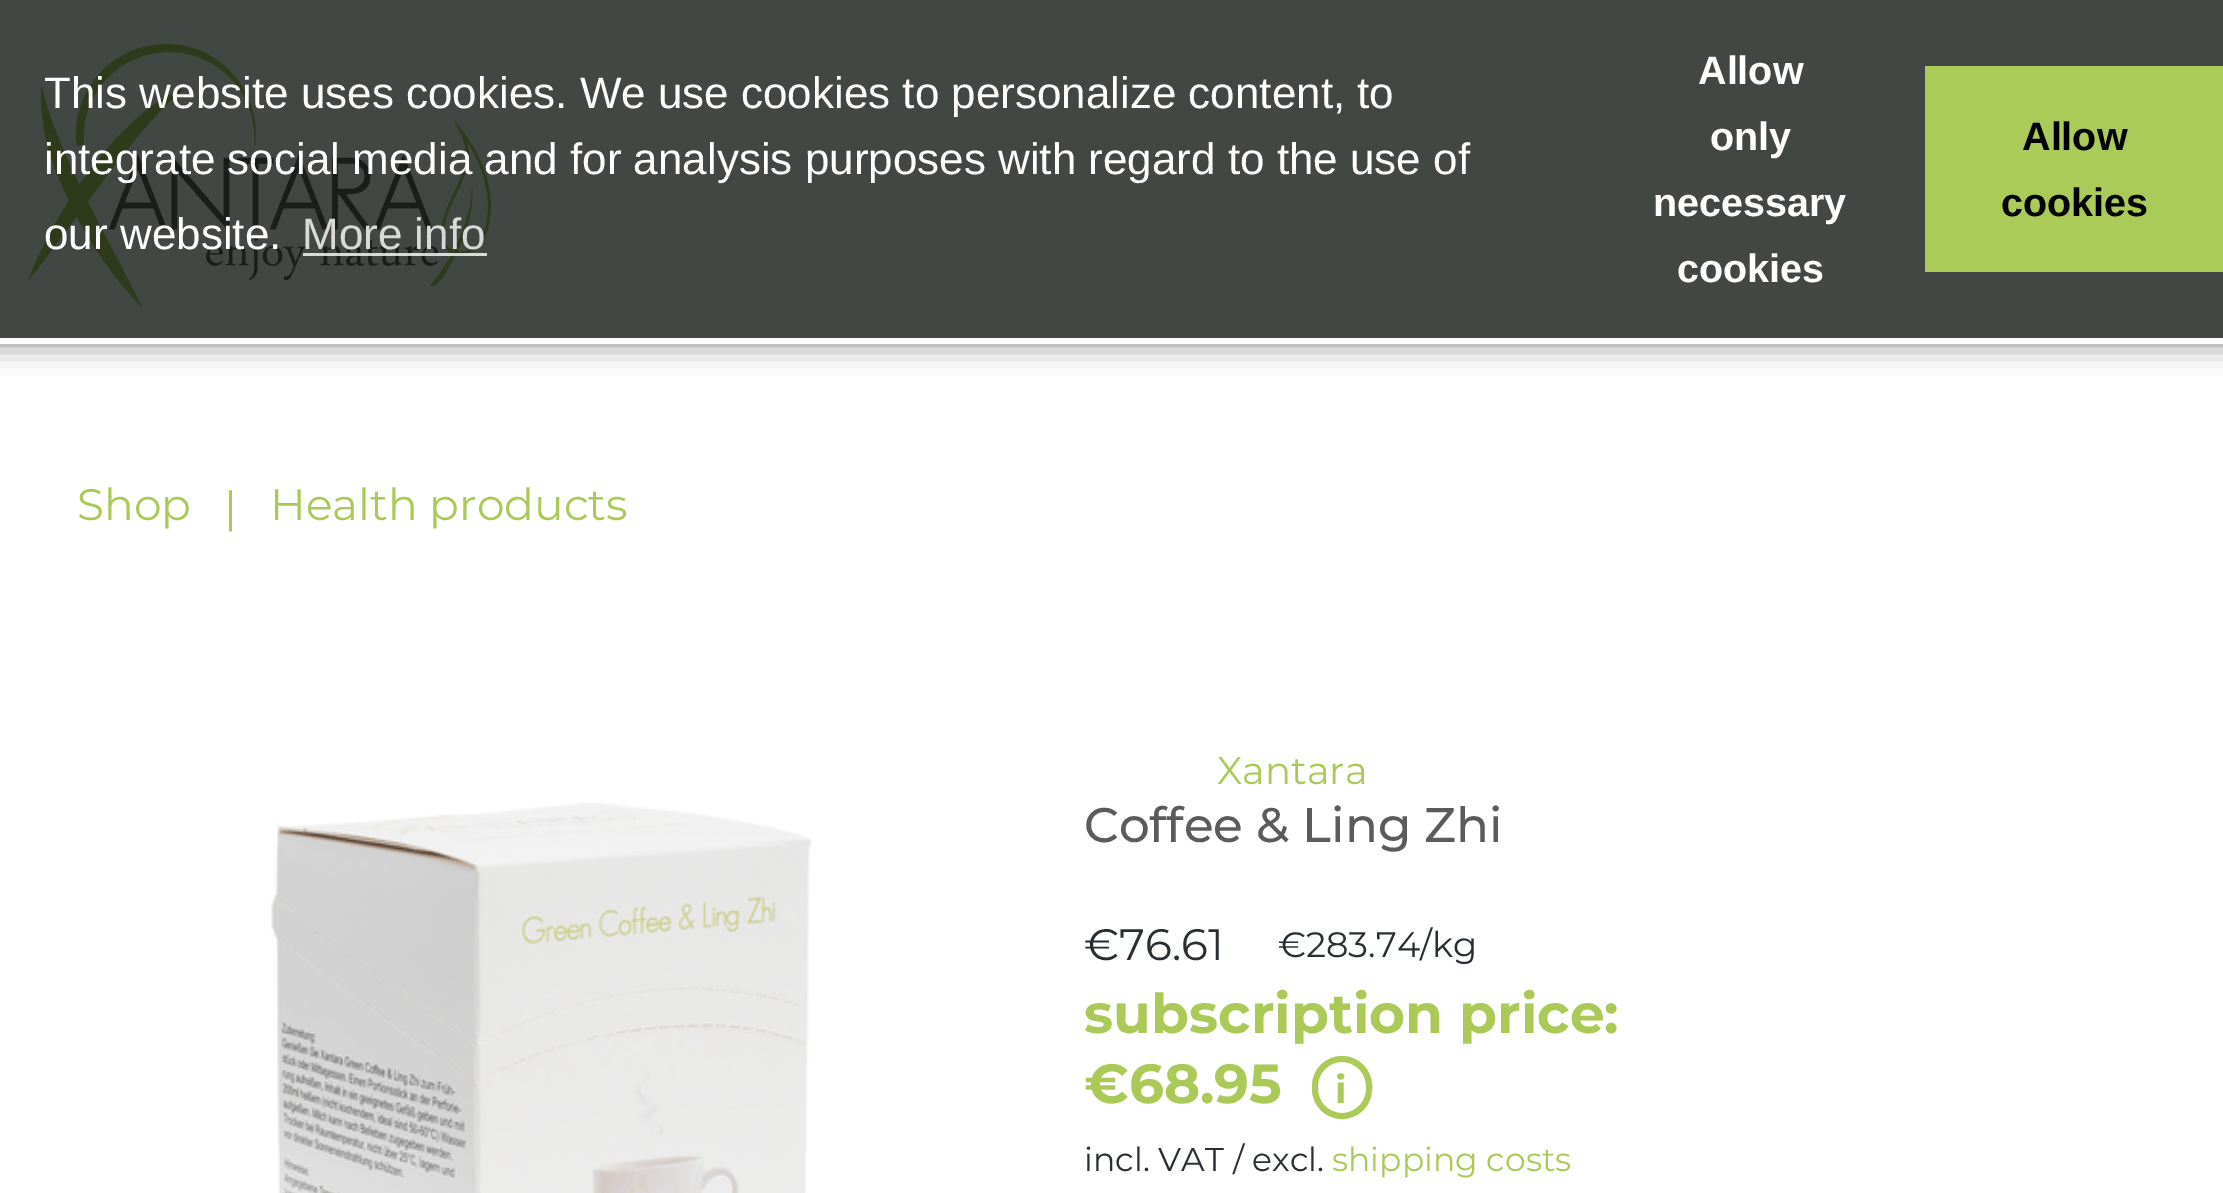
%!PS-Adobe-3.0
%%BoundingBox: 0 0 2223 1193
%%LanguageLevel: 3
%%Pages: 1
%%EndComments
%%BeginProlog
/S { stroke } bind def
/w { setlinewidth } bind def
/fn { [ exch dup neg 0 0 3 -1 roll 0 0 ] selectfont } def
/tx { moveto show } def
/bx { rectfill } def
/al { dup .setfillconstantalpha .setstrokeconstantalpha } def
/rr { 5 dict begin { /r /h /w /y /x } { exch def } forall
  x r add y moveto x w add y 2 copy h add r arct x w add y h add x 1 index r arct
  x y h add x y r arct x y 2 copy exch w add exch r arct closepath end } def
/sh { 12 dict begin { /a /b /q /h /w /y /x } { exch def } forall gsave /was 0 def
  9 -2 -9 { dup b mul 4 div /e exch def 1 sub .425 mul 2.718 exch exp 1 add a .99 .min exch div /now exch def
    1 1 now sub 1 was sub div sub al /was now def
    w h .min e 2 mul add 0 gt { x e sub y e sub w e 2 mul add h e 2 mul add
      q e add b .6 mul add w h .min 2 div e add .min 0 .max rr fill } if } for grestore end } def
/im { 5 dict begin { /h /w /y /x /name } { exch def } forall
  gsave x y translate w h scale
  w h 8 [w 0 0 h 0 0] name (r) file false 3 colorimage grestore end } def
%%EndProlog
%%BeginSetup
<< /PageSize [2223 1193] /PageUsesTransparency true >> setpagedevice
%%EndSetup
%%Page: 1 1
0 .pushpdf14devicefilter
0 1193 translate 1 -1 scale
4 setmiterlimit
1 setgray
0 0 2223 1193 bx
0 setgray
-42 0 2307 344 0 14 0.5 sh
0.263 0.278 0.263 setrgbcolor
0 0 2223 338 bx
(image0.raw) 28 44 464 264 im
/LiberationSans-Regular 44 fn
1 setgray
(This website uses cookies. We use cookies to personalize content, to) 44 108 tx
(integrate social media and for analysis purposes with regard to the use of) 44 174 tx
(our website.) 44 249 tx
0.847 0.851 0.847 setrgbcolor
(More info) 302 249 tx
0.8 al
1 setgray
303 253 184 3 bx
/LiberationSans-Bold 39.5 fn
1 al
(Allow) 1698 84 tx
(only) 1710 150 tx
(necessary) 1653 216 tx
(cookies) 1677 282 tx
0.671 0.796 0.349 setrgbcolor
1925 66 298 206 bx
0 setgray
(Allow) 2022 150 tx
(cookies) 2001 216 tx
1 setgray
0 338 2223 6 bx
/Montserrat-Regular 44 fn
0.671 0.788 0.337 setrgbcolor
(Shop) 77 520 tx
(|) 224 523 tx
(Health products) 270 520 tx
(image1.raw) 271 802 541 391 im
/Montserrat-Regular 38.5 fn
(Xantara) 1217 784 tx
/Montserrat-Medium 48.5 fn
0.357 setgray
(Coffee & Ling Zhi) 1084 842 tx
/Montserrat-Regular 44 fn
0.161 0.18 0.2 setrgbcolor
(€76.61) 1084 960 tx
/Montserrat-Regular 35.25 fn
(€283.74/kg) 1278 957 tx
/Montserrat-Bold 55 fn
0.671 0.788 0.337 setrgbcolor
(subscription price:) 1084 1033 tx
(€68.95) 1084 1103 tx
0.671 0.796 0.349 setrgbcolor
6 w
1315 1059 54 57 27 rr S
/Montserrat-Bold 38 fn
0.671 0.788 0.337 setrgbcolor
(i) 1335 1103 tx
/Montserrat-Regular 33 fn
0.161 0.18 0.2 setrgbcolor
(incl. VAT / excl.) 1084 1171 tx
0.671 0.788 0.337 setrgbcolor
(shipping costs) 1332 1171 tx
.poppdf14devicefilter showpage
%%EOF
